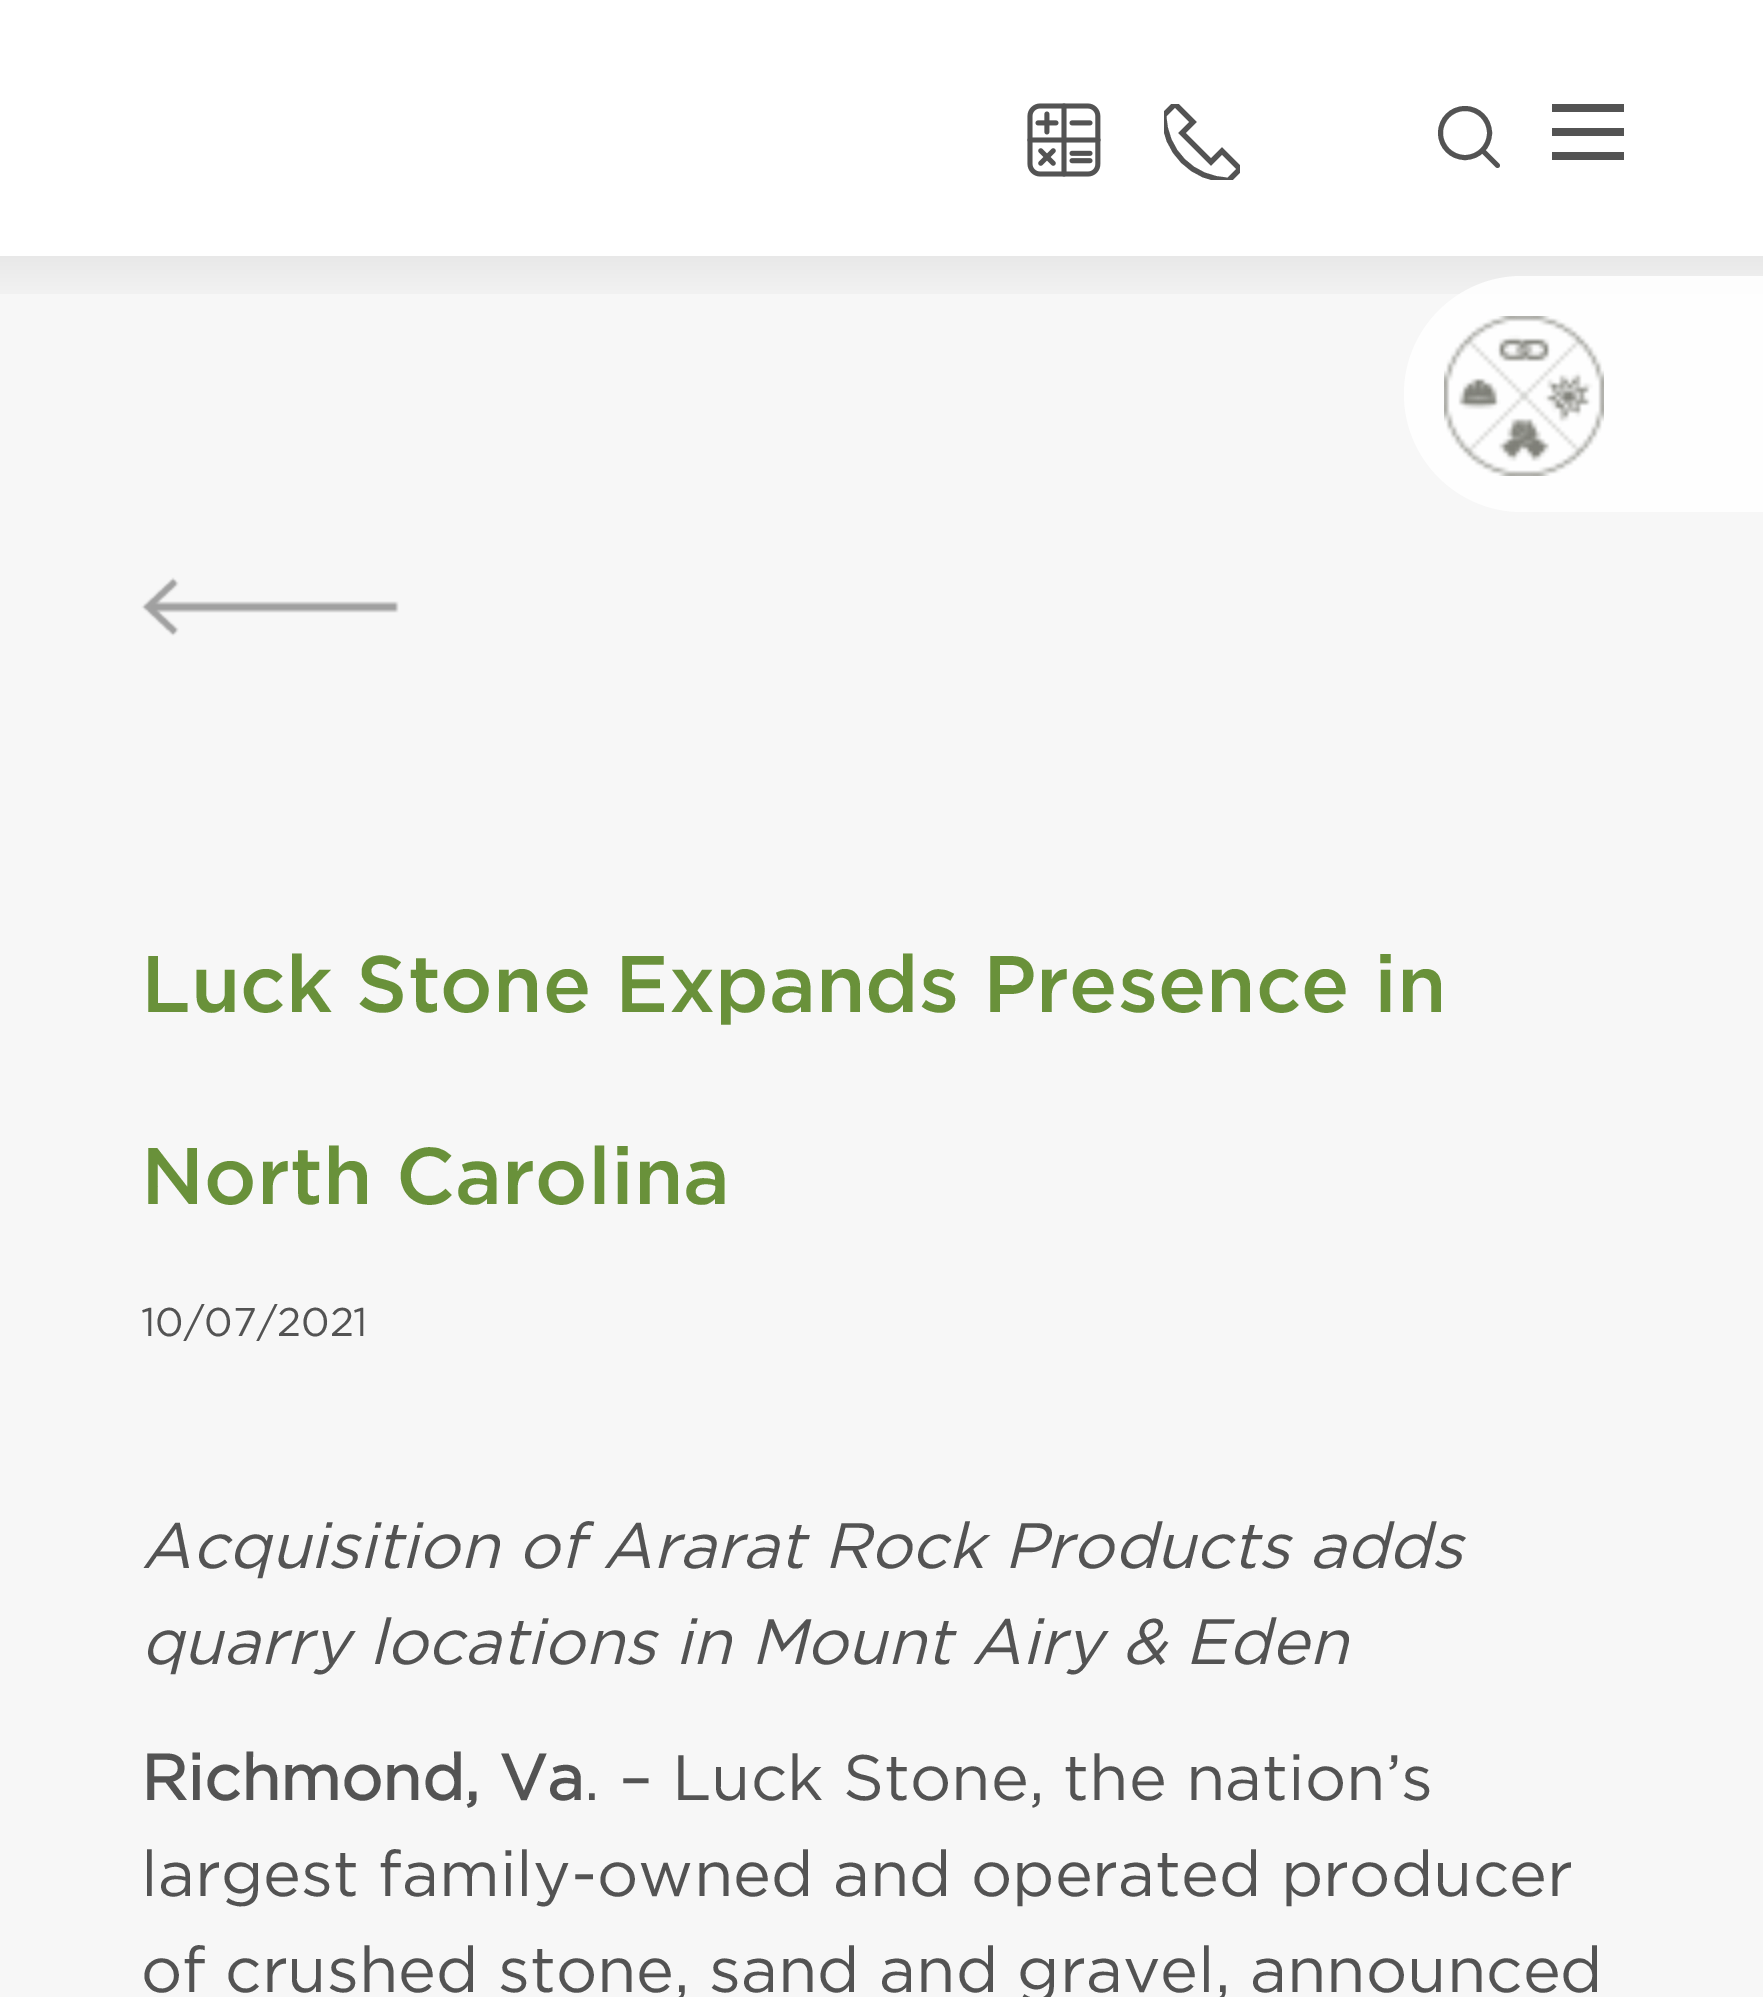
%!PS-Adobe-3.0
%%BoundingBox: 0 0 1763 1997
%%LanguageLevel: 3
%%Pages: 1
%%EndComments
%%BeginProlog
/m { moveto } bind def
/l { lineto } bind def
/c { curveto } bind def
/h { closepath } bind def
/f { fill } bind def
/S { stroke } bind def
/q { gsave } bind def
/Q { grestore } bind def
/w { setlinewidth } bind def
/fn { [ exch dup neg 0 0 3 -1 roll 0 0 ] selectfont } def
/tx { moveto show } def
/bx { rectfill } def
/al { dup .setfillconstantalpha .setstrokeconstantalpha } def
/ci { newpath 0 360 arc closepath } def
/im { 5 dict begin { /h /w /y /x /name } { exch def } forall
  gsave x y translate w h scale
  w h 8 [w 0 0 h 0 0] name (r) file false 3 colorimage grestore end } def
%%EndProlog
%%BeginSetup
<< /PageSize [1763 1997] /PageUsesTransparency true >> setpagedevice
%%EndSetup
%%Page: 1 1
0 .pushpdf14devicefilter
0 1997 translate 1 -1 scale
4 setmiterlimit
0.969 setgray
0 0 1763 1997 bx
(image0.raw) 0 256 1763 38 im
1 setgray
0 0 1763 256 bx
(image1.raw) 1027 103 74 74 im
q
1164 104 76 76 rectclip
0.325 setgray
5.1 w
1222 151 m 1211 162 l 1182 133 l 1193 122 l 1175 104 l 1164 115 l 1164 151 1193 180 1229 180 c 1240 169 l h S
Q
0.325 setgray
4.9 w
1 setlinecap
1 setlinejoin
1497.5 165.5 m 1482.5 150.5 l S
0 setlinecap
0 setlinejoin
1465 133 24.5 ci S
1552 128 72 8 bx
1552 104 72 8 bx
1552 152 72 8 bx
0.87 al
1 setgray
1522 276 m 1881 276 l 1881 512 l 1522 512 l 1457 512 1404 459 1404 394 c 1404 329 1457 276 1522 276 c h f
1 al
(image2.raw) 1444 316 160 160 im
(image3.raw) 141 577 258 59 im
/Gotham-Medium 80 fn
0.412 0.569 0.227 setrgbcolor
(Luck Stone Expands Presence in) 141 1012 tx
(North Carolina) 141 1204 tx
/Gotham-Regular 40 fn
0.325 setgray
(10/07/2021) 141 1336 tx
/Gotham-Italic 64 fn
(Acquisition of Ararat Rock Products adds) 141 1568 tx
(quarry locations in Mount Airy & Eden) 141 1664 tx
/Gotham-Bold 64 fn
(Richmond, Va) 141 1800 tx
/Gotham-Regular 64 fn
(. – Luck Stone, the nation’s) 584 1800 tx
(largest family-owned and operated producer) 141 1896 tx
(of crushed stone, sand and gravel, announced) 141 1992 tx
.poppdf14devicefilter showpage
%%EOF
